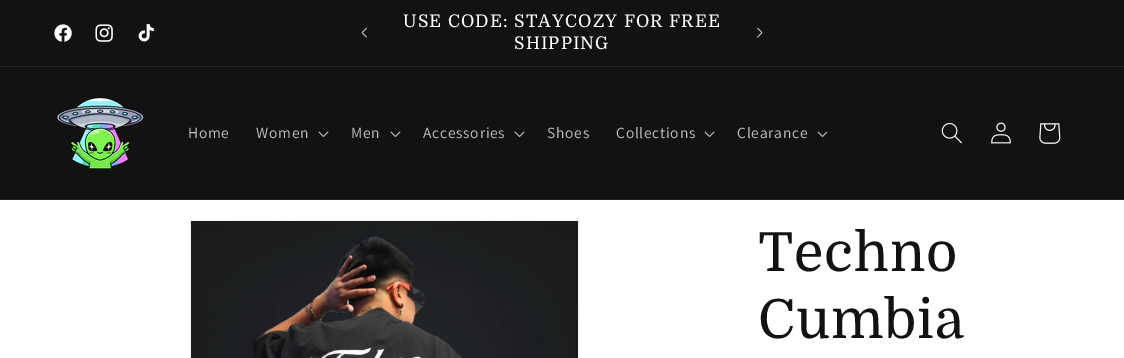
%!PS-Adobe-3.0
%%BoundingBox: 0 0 1124 358
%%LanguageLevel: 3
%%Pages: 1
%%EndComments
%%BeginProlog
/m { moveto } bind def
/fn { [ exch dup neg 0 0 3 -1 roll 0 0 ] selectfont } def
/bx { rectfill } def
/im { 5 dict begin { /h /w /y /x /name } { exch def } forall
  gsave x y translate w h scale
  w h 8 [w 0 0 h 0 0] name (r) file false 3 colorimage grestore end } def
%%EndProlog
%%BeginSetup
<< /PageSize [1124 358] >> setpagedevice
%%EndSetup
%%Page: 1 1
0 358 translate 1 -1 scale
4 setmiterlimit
1 setgray
0 0 1124 358 bx
0.071 setgray
0 0 1124 66 bx
0.145 setgray
0 66 1124 1 bx
(image0.raw) 54 24 18 18 im
(image1.raw) 95 24 18 18 im
(image2.raw) 138 24 16 18 im
(image3.raw) 361 27 6 11 im
/Domine-Regular 17.5 fn
1 setgray
403 27 m 1.1 0 (USE CODE: STAYCOZY FOR FREE) ashow
514 49 m 1.1 0 (SHIPPING) ashow
(image4.raw) 757 27 6 11 im
0.071 setgray
0 67 1124 132 bx
0.145 setgray
0 199 1124 1 bx
(image5.raw) 56 97 88 73 im
/Assistant-Regular 15.5 fn
0.769 setgray
188 138 m 0.75 0 (Home) ashow
256 138 m 0.75 0 (Women) ashow
(image6.raw) 318 131 11 6 im
351 138 m 0.75 0 (Men) ashow
(image6.raw) 390 131 11 6 im
423 138 m 0.75 0 (Accessories) ashow
(image6.raw) 514 131 11 6 im
547 138 m 0.75 0 (Shoes) ashow
616 138 m 0.75 0 (Collections) ashow
(image6.raw) 704 131 11 6 im
737 138 m 0.75 0 (Clearance) ashow
(image7.raw) 817 131 10 6 im
(image8.raw) 941 122 21 22 im
(image9.raw) 991 122 20 22 im
(image10.raw) 1039 123 22 21 im
0.953 setgray
190.5 220.5 388 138 rectstroke
(image11.raw) 191 221 387 137 im
/Domine-Regular 54 fn
0.071 setgray
758 271 m 0.75 0 (Techno) ashow
758 338 m 0.75 0 (Cumbia) ashow
showpage
%%EOF
